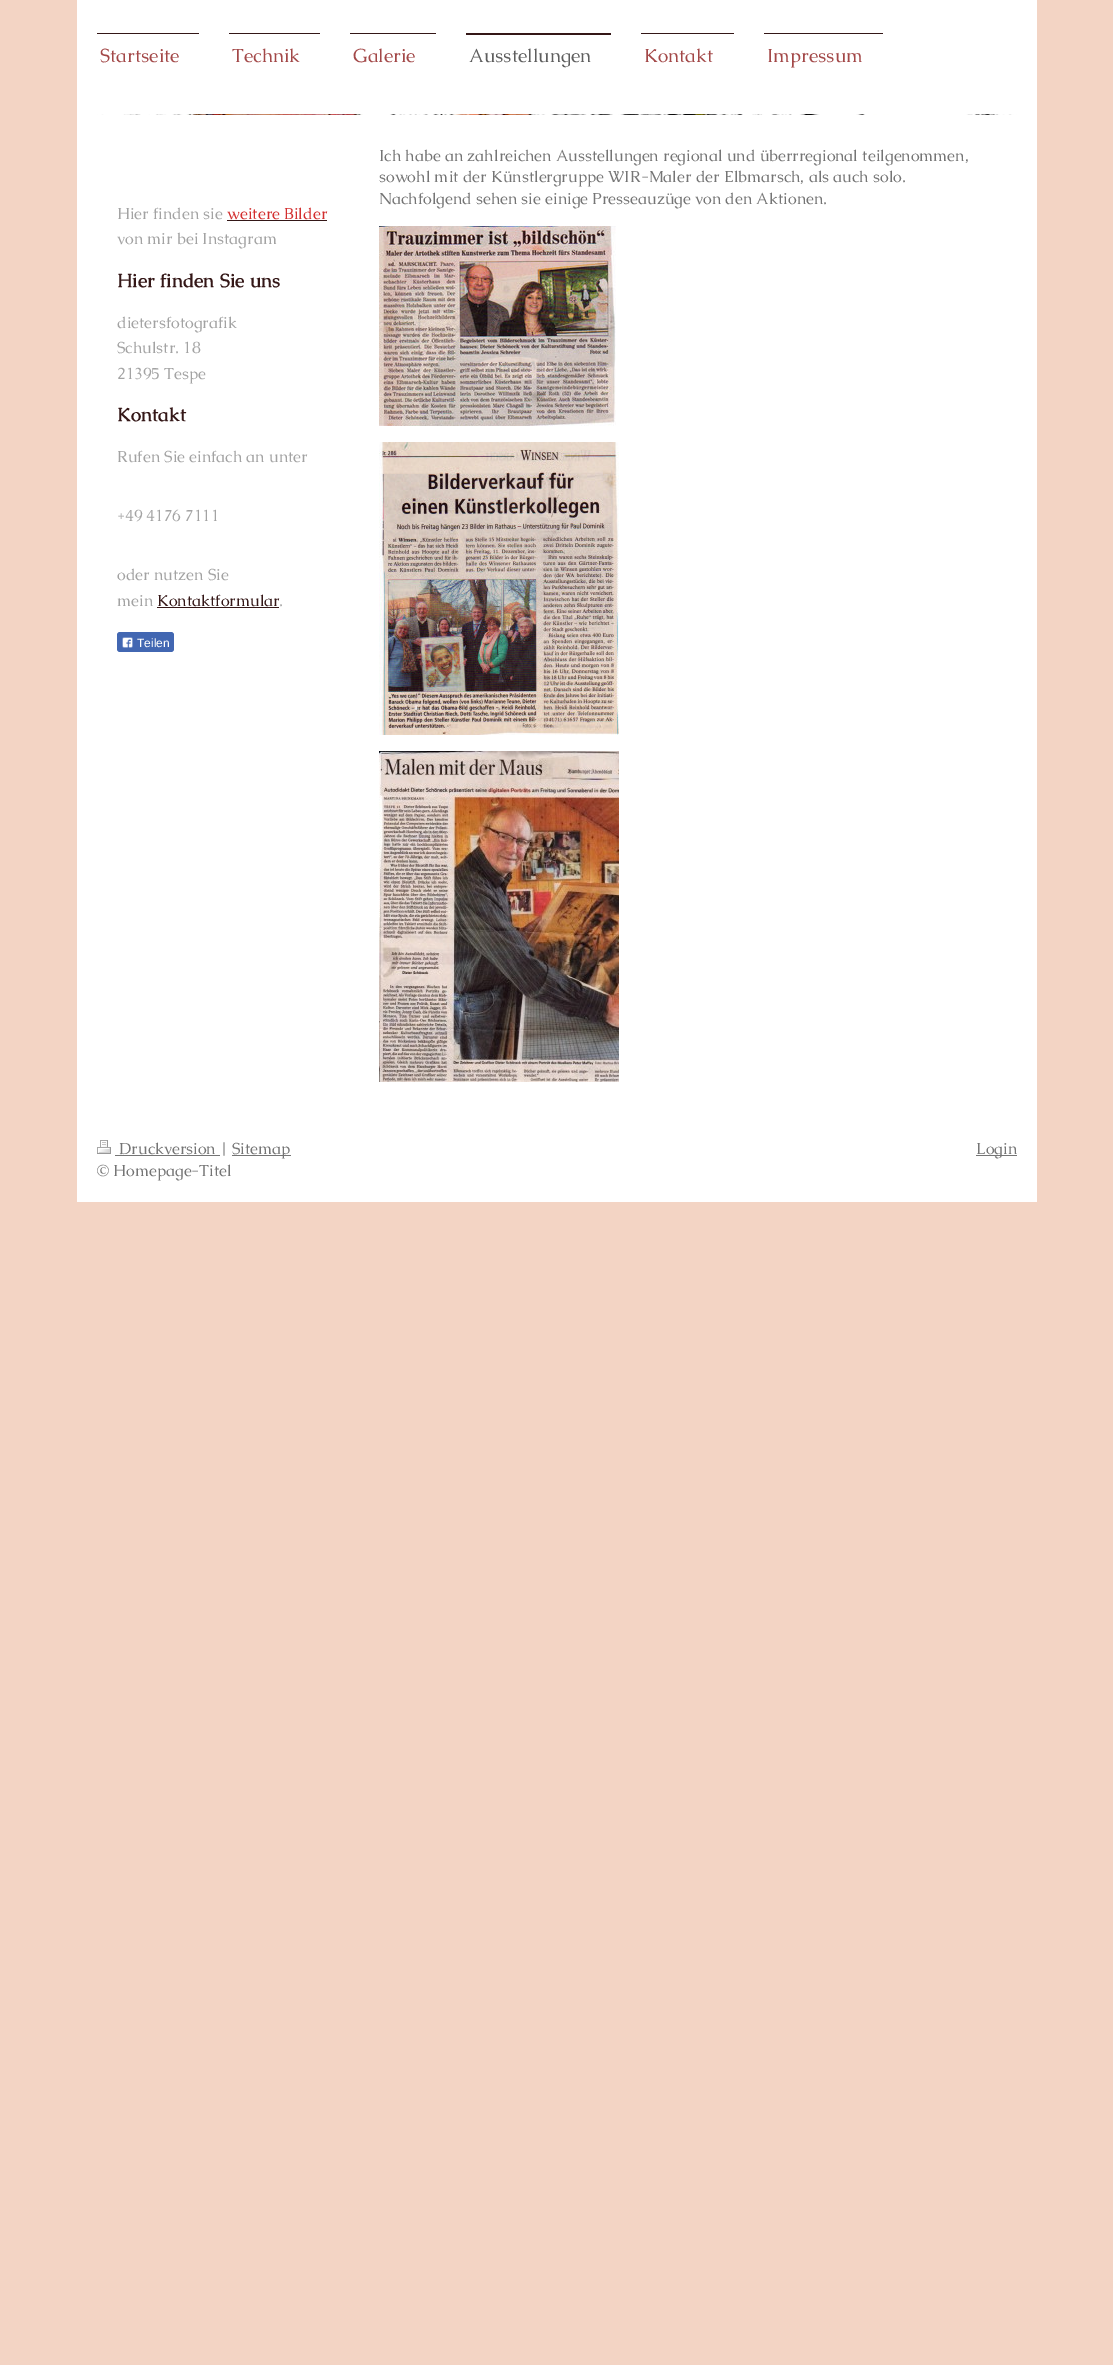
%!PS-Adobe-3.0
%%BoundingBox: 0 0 1113 2365
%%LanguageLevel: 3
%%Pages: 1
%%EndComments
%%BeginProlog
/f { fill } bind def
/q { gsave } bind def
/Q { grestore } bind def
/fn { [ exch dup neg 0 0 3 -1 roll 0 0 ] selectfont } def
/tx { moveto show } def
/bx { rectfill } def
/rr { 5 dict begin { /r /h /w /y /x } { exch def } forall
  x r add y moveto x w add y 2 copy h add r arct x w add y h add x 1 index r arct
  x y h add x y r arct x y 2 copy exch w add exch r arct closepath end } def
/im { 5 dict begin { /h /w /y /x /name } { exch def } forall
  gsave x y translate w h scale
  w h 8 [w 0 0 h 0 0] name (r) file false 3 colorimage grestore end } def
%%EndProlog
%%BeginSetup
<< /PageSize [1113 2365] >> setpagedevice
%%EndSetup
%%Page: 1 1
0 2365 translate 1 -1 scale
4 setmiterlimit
0.953 0.831 0.769 setrgbcolor
0 0 1113 2365 bx
1 setgray
77 0 960 1202 bx
0.204 0.09 0.09 setrgbcolor
97 33 102 1 bx
/Caudex-Regular 19 fn
0.639 0.282 0.282 setrgbcolor
(Startseite) 100 62 tx
0.204 0.09 0.09 setrgbcolor
229 33 91 1 bx
0.639 0.282 0.282 setrgbcolor
(Technik) 232 62 tx
0.204 0.09 0.09 setrgbcolor
350 33 86 1 bx
0.639 0.282 0.282 setrgbcolor
(Galerie) 353 62 tx
0.204 0.09 0.09 setrgbcolor
466 33 145 2 bx
0.369 setgray
(Ausstellungen) 469 62 tx
0.204 0.09 0.09 setrgbcolor
641 33 93 1 bx
0.639 0.282 0.282 setrgbcolor
(Kontakt) 644 62 tx
0.204 0.09 0.09 setrgbcolor
764 33 119 1 bx
0.639 0.282 0.282 setrgbcolor
(Impressum) 767 62 tx
(image0.raw) 97 114 920 1 im
/Caudex-Regular 16 fn
0.459 setgray
(Ich habe an zahlreichen Ausstellungen regional und überrregional teilgenommen,) 379 161 tx
(sowohl mit der Künstlergruppe WIR-Maler der Elbmarsch, als auch solo.) 379 182 tx
(Nachfolgend sehen sie einige Presseauzüge von den Aktionen.) 379 204 tx
(image1.raw) 379 226 237 200 im
(image2.raw) 379 442 240 293 im
(image3.raw) 379 751 240 331 im
0.639 setgray
(Hier finden sie) 117 219 tx
0.827 0.184 0.184 setrgbcolor
(weitere Bilder) 227 219 tx
0.204 0.09 0.09 setrgbcolor
227 220 100 1 bx
0.639 setgray
(von mir bei Instagram) 117 244 tx
/Caudex-Bold 19 fn
0.204 0.09 0.09 setrgbcolor
(Hier finden Sie uns) 117 287 tx
/Caudex-Regular 16 fn
0.639 setgray
(dietersfotografik) 117 328 tx
(Schulstr. 18) 117 353 tx
(21395 Tespe) 117 379 tx
/Caudex-Bold 19 fn
0.204 0.09 0.09 setrgbcolor
(Kontakt) 117 421 tx
/Caudex-Regular 16 fn
0.639 setgray
(Rufen Sie einfach an unter) 117 462 tx
(+49 4176 7111) 117 521 tx
(oder nutzen Sie) 117 580 tx
(mein) 117 606 tx
0.204 0.09 0.09 setrgbcolor
(Kontaktformular) 157 606 tx
157 607 122 1 bx
0.639 setgray
(.) 279 606 tx
0.259 0.404 0.698 setrgbcolor
117 632 57 20 3 rr f
(image4.raw) 122 637 11 11 im
/LiberationSans-Regular 12 fn
1 setgray
(Teilen) 137 647 tx
(image5.raw) 97 1140 14 14 im
0.459 setgray
115 1155 105 1 bx
/Caudex-Regular 16 fn
(Druckversion |) 119 1154 tx
232 1155 59 1 bx
(Sitemap) 232 1154 tx
q
97 1138 920 44 rectclip
(© Homepage-Titel) 97 1176 tx
Q
976 1155 41 1 bx
(Login) 976 1154 tx
showpage
%%EOF
